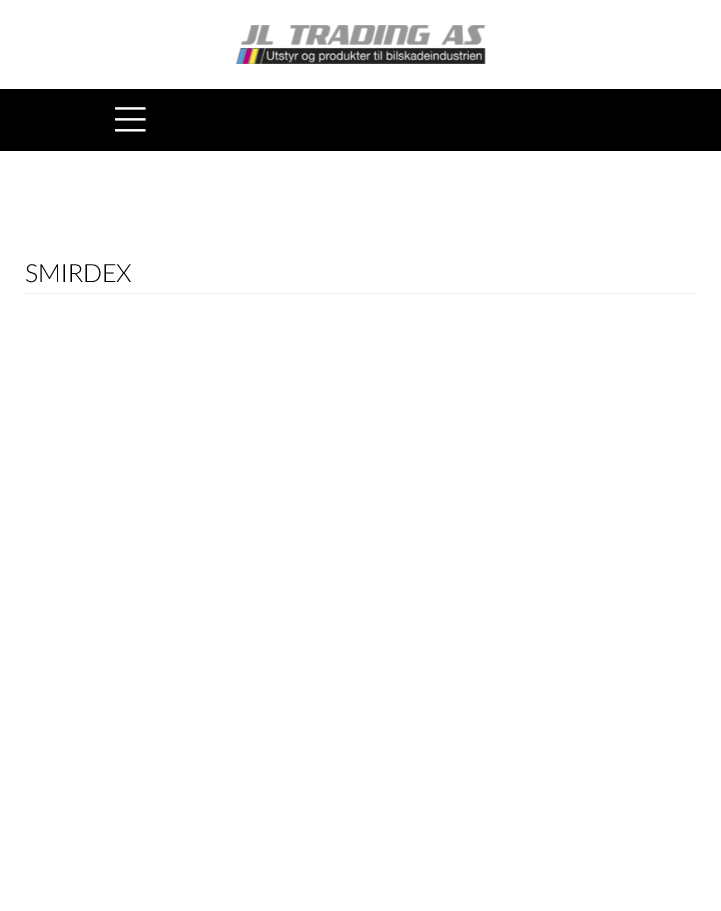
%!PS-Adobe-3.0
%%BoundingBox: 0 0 721 911
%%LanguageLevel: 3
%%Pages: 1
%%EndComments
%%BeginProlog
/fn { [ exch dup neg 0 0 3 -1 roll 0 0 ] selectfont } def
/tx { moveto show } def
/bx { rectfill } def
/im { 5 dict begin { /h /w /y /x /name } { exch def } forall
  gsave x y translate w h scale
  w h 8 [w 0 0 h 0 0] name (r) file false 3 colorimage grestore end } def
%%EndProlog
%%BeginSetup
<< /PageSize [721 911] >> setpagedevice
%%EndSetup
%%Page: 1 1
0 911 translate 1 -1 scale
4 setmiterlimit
1 setgray
0 0 721 911 bx
(image0.raw) 236 25 250 39 im
0 setgray
0 89 721 62 bx
(image1.raw) 115 107 31 25 im
/Lato-Light 25 fn
(SMIRDEX) 25 282 tx
0.933 setgray
25 293 671 1 bx
showpage
%%EOF
